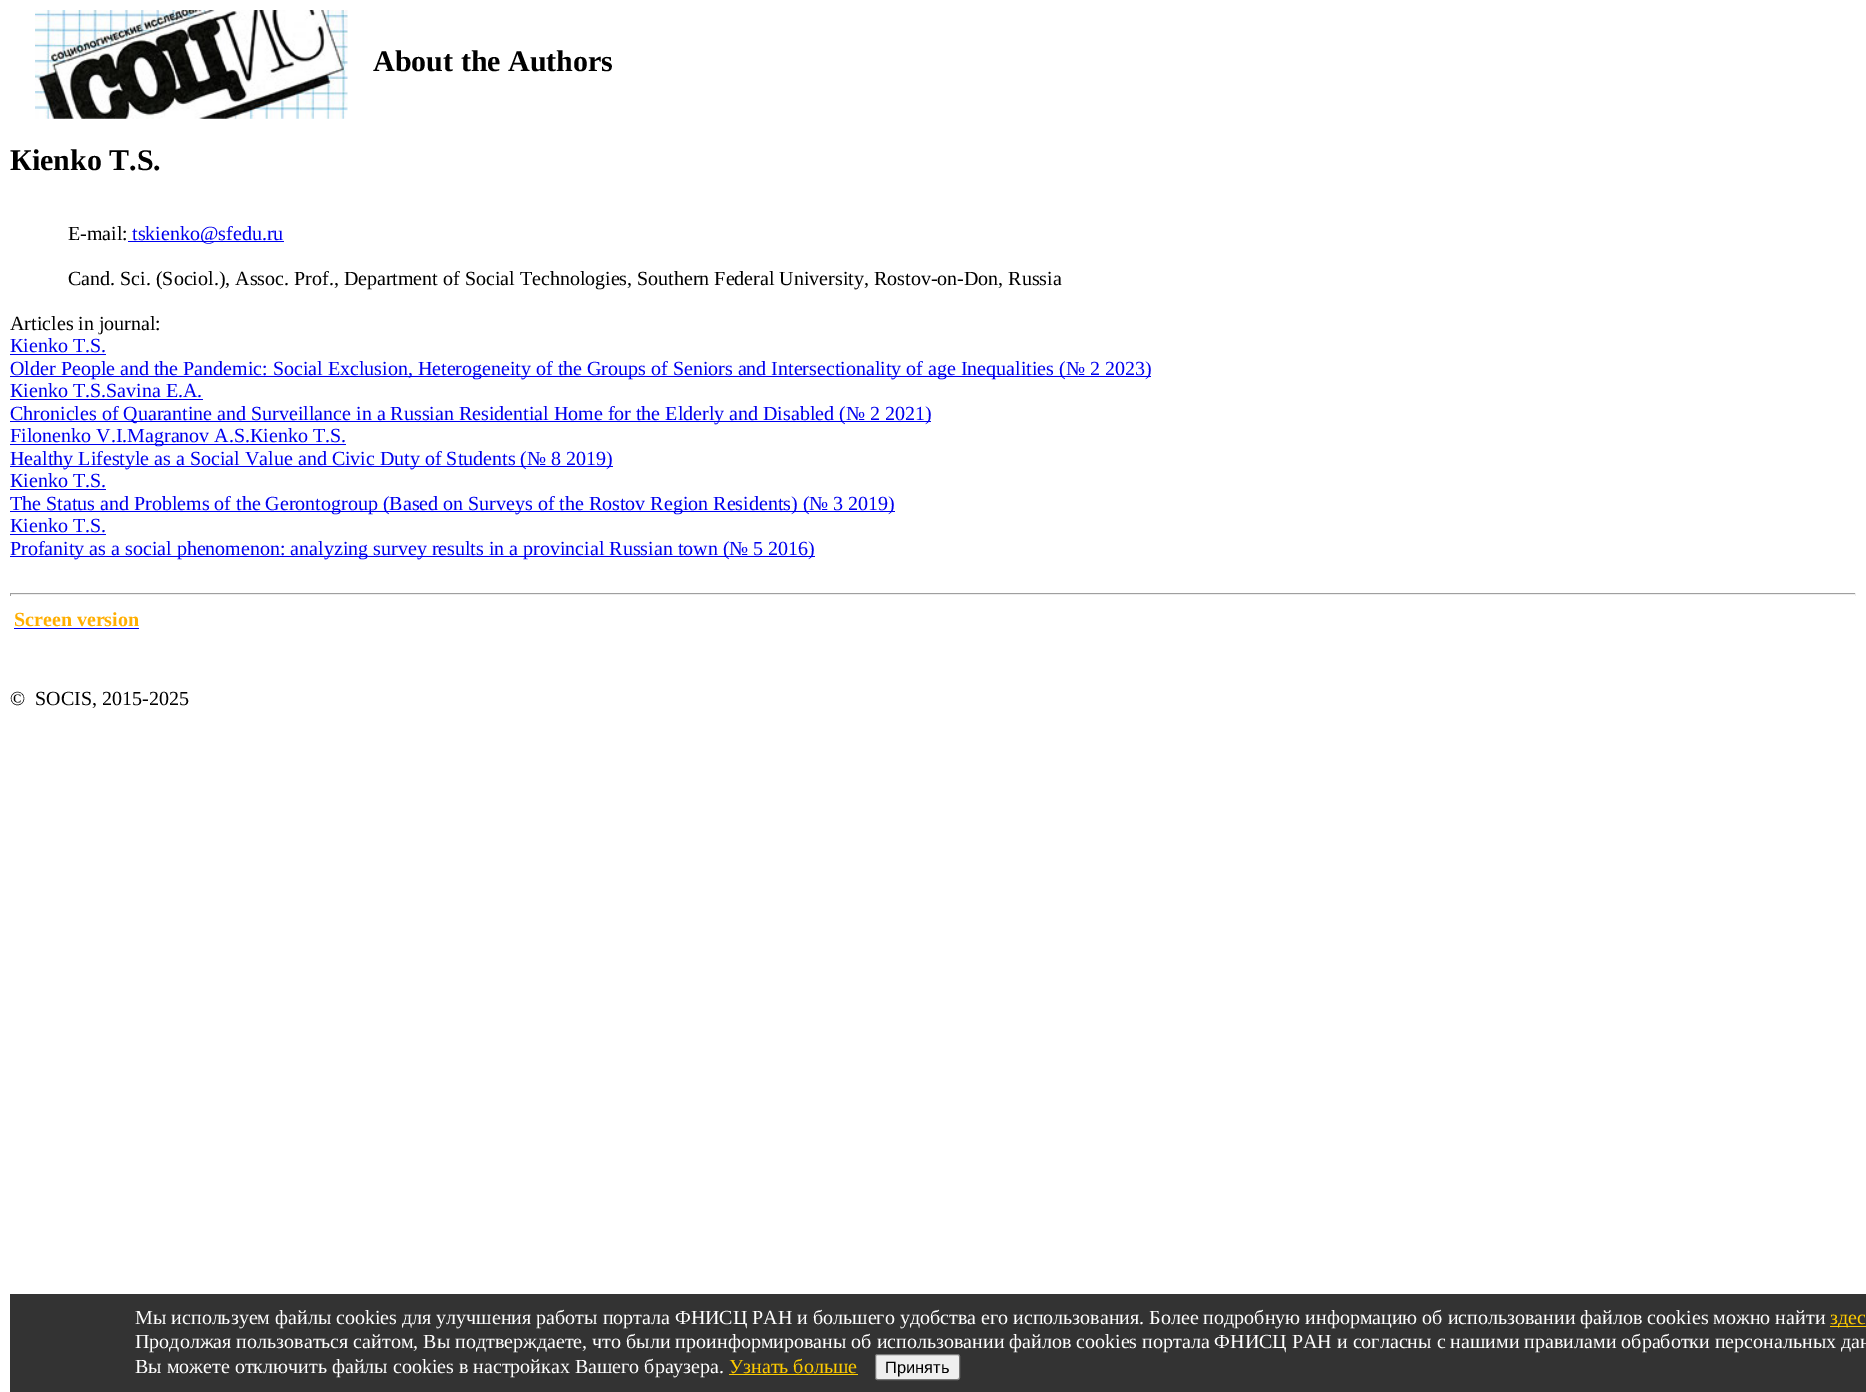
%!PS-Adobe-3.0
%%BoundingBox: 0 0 1866 1392
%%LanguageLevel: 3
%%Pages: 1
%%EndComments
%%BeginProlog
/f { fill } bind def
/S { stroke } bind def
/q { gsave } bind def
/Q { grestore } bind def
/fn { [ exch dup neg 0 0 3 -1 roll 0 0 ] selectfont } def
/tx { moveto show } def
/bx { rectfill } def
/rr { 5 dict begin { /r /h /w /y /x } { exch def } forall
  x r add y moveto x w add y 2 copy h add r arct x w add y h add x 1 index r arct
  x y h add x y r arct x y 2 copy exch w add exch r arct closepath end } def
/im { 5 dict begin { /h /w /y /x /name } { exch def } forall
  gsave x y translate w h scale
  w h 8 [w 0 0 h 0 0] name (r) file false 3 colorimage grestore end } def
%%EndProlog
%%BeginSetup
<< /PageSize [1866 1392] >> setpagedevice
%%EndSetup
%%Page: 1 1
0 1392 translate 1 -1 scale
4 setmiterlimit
1 setgray
0 0 1866 1392 bx
(image0.raw) 35 10 313 109 im
/LiberationSerif-Bold 30 fn
0 setgray
(About the Authors) 373 71 tx
(Кienko Т.S.) 10 170 tx
/LiberationSerif-Regular 20 fn
(E-mail:) 68 240 tx
0 0 0.933 setrgbcolor
128 241 156 1 bx
(tskienko@sfedu.ru) 132 240 tx
0 setgray
(Cand. Sci. \(Sociol.\), Assoc. Prof., Department of Social Technologies, Southern Federal University, Rostov-on-Don, Russia) 68 285 tx
(Articles in journal:) 10 330 tx
0 0 0.933 setrgbcolor
(Кienko Т.S.) 10 352 tx
10 354 96 1 bx
10 376 1141 1 bx
(Older People and the Pandemic: Social Exclusion, Heterogeneity of the Groups of Seniors and Intersectionality of age Inequalities \(№ 2 2023\)) 10 375 tx
(Кienko Т.S.Savina E.A.) 10 397 tx
10 399 193 1 bx
10 421 921 1 bx
(Chronicles of Quarantine and Surveillance in a Russian Residential Home for the Elderly and Disabled \(№ 2 2021\)) 10 420 tx
10 444 336 1 bx
(Filonenko V.I.Мagranov А.S.Кienko Т.S.) 10 442 tx
10 466 603 1 bx
(Healthy Lifestyle as a Social Value and Civic Duty of Students \(№ 8 2019\)) 10 465 tx
(Кienko Т.S.) 10 487 tx
10 489 96 1 bx
10 511 885 1 bx
(The Status and Problems of the Gerontogroup \(Based on Surveys of the Rostov Region Residents\) \(№ 3 2019\)) 10 510 tx
(Кienko Т.S.) 10 532 tx
10 534 96 1 bx
10 556 805 1 bx
(Profanity as a social phenomenon: analyzing survey results in a provincial Russian town \(№ 5 2016\)) 10 555 tx
0.624 setgray
10 593 1846 1 bx
0.933 setgray
1855 593 1 3 bx
10 594 1846 1 bx
0.624 setgray
10 593 1 3 bx
/LiberationSerif-Bold 20 fn
1 0.682 0 setrgbcolor
(Screen version) 14 626 tx
0 0 0.933 setrgbcolor
14 628 125 1 bx
/LiberationSerif-Regular 20 fn
0 setgray
(©  SOCIS, 2015-2025) 10 705 tx
0.2 setgray
10 1294 1856 98 bx
1 setgray
(Мы используем файлы cookies для улучшения работы портала ФНИСЦ РАН и большего удобства его использования. Более подробную информацию об использовании файлов cookies можно найти) 135 1324 tx
1 0.8 0 setrgbcolor
1830 1326 36 1 bx
(здес) 1830 1324 tx
1 setgray
(Продолжая пользоваться сайтом, Вы подтверждаете, что были проинформированы об использовании файлов cookies портала ФНИСЦ РАН и согласны с нашими правилами обработки персональных дан) 135 1348 tx
(Вы можете отключить файлы cookies в настройках Вашего браузера.) 135 1373 tx
1 0.8 0 setrgbcolor
(Узнать больше) 729 1373 tx
729 1374 129 1 bx
0.937 setgray
875.5 1354.5 84 25 2 rr q f Q
0.463 setgray
S
/LiberationSans-Regular 16.5 fn
0 setgray
(Принять) 885 1373 tx
showpage
%%EOF
